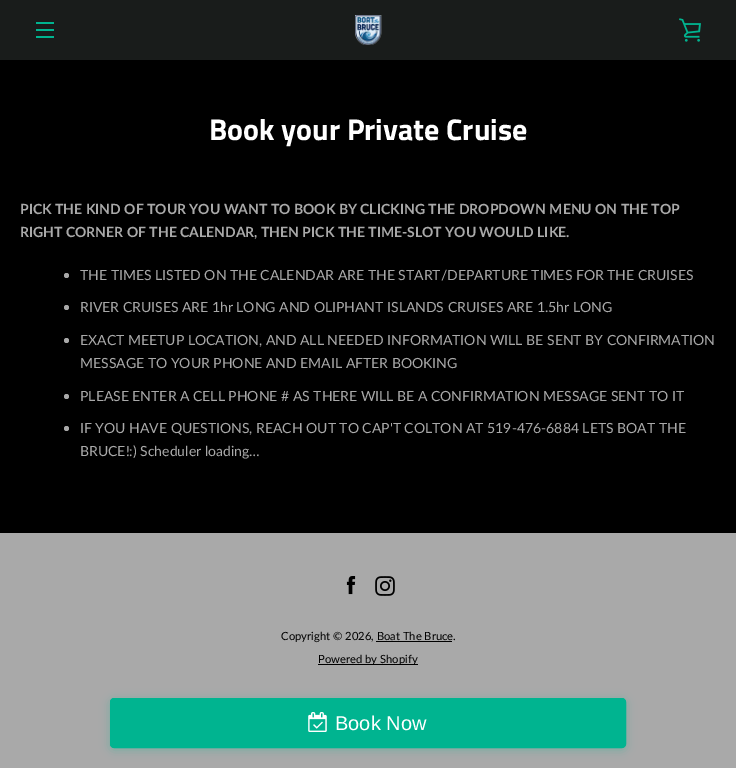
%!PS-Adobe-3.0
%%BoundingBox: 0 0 736 768
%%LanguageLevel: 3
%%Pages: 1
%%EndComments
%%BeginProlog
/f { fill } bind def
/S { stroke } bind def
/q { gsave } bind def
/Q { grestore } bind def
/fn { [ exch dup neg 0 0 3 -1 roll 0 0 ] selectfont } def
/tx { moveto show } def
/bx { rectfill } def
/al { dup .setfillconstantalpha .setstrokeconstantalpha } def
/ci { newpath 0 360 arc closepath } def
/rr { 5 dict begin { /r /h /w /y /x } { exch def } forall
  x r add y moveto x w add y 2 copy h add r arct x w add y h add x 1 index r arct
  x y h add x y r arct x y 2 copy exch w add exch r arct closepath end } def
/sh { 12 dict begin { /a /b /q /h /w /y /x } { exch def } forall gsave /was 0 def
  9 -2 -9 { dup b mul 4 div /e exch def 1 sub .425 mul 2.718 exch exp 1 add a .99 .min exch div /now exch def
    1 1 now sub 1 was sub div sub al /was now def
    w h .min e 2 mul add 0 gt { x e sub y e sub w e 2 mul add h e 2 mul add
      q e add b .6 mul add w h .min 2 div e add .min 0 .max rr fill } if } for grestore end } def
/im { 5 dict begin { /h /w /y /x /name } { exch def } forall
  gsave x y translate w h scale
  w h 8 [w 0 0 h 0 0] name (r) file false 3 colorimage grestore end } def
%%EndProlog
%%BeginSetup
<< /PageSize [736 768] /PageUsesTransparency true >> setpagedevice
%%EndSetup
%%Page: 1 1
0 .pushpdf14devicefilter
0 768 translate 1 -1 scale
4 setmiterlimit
0.663 setgray
0 0 736 768 bx
0.098 0.11 0.106 setrgbcolor
0 0 736 60 bx
0 0.706 0.565 setrgbcolor
36 22 18 2 bx
36 29 18 2 bx
36 36 18 2 bx
(image0.raw) 355 15 27 30 im
(image1.raw) 679 18 22 24 im
0 setgray
0 60 736 473 bx
/TitilliumWeb-Bold 30 fn
1 setgray
(Book your Private Cruise) 209 140 tx
/Lato-Bold 14 fn
0.663 setgray
(PICK THE KIND OF TOUR YOU WANT TO BOOK BY CLICKING THE DROPDOWN MENU ON THE TOP) 20 214 tx
(RIGHT CORNER OF THE CALENDAR, THEN PICK THE TIME-SLOT YOU WOULD LIKE.) 20 237 tx
66.5 275.5 2.5 ci f
/Lato-Regular 14 fn
(THE TIMES LISTED ON THE CALENDAR ARE THE START/DEPARTURE TIMES FOR THE CRUISES) 80 280 tx
66.5 307.5 2.5 ci f
(RIVER CRUISES ARE 1hr LONG AND OLIPHANT ISLANDS CRUISES ARE 1.5hr LONG) 80 312 tx
66.5 340.5 2.5 ci f
(EXACT MEETUP LOCATION, AND ALL NEEDED INFORMATION WILL BE SENT BY CONFIRMATION) 80 345 tx
(MESSAGE TO YOUR PHONE AND EMAIL AFTER BOOKING) 80 368 tx
66.5 396.5 2.5 ci f
(PLEASE ENTER A CELL PHONE # AS THERE WILL BE A CONFIRMATION MESSAGE SENT TO IT) 80 401 tx
66.5 428.5 2.5 ci f
(IF YOU HAVE QUESTIONS, REACH OUT TO CAP'T COLTON AT 519-476-6884 LETS BOAT THE) 80 433 tx
(BRUCE!:\) Scheduler loading…) 80 456 tx
(image2.raw) 346 576 10 19 im
(image3.raw) 375 576 20 20 im
/Lato-Regular 11.25 fn
0 setgray
(Copyright © 2026, Boat The Bruce.) 281 640 tx
376 641 76 1 bx
318 664 100 1 bx
(Powered by Shopify) 318 663 tx
0 0.706 0.565 setrgbcolor
110 700 516 50 4 5 0.3 sh
110.5 698.5 515 49 3.5 rr q f Q
S
(image4.raw) 308 712 19 20 im
/LiberationSans-Regular 20 fn
1 setgray
(Book Now) 335 730 tx
.poppdf14devicefilter showpage
%%EOF
